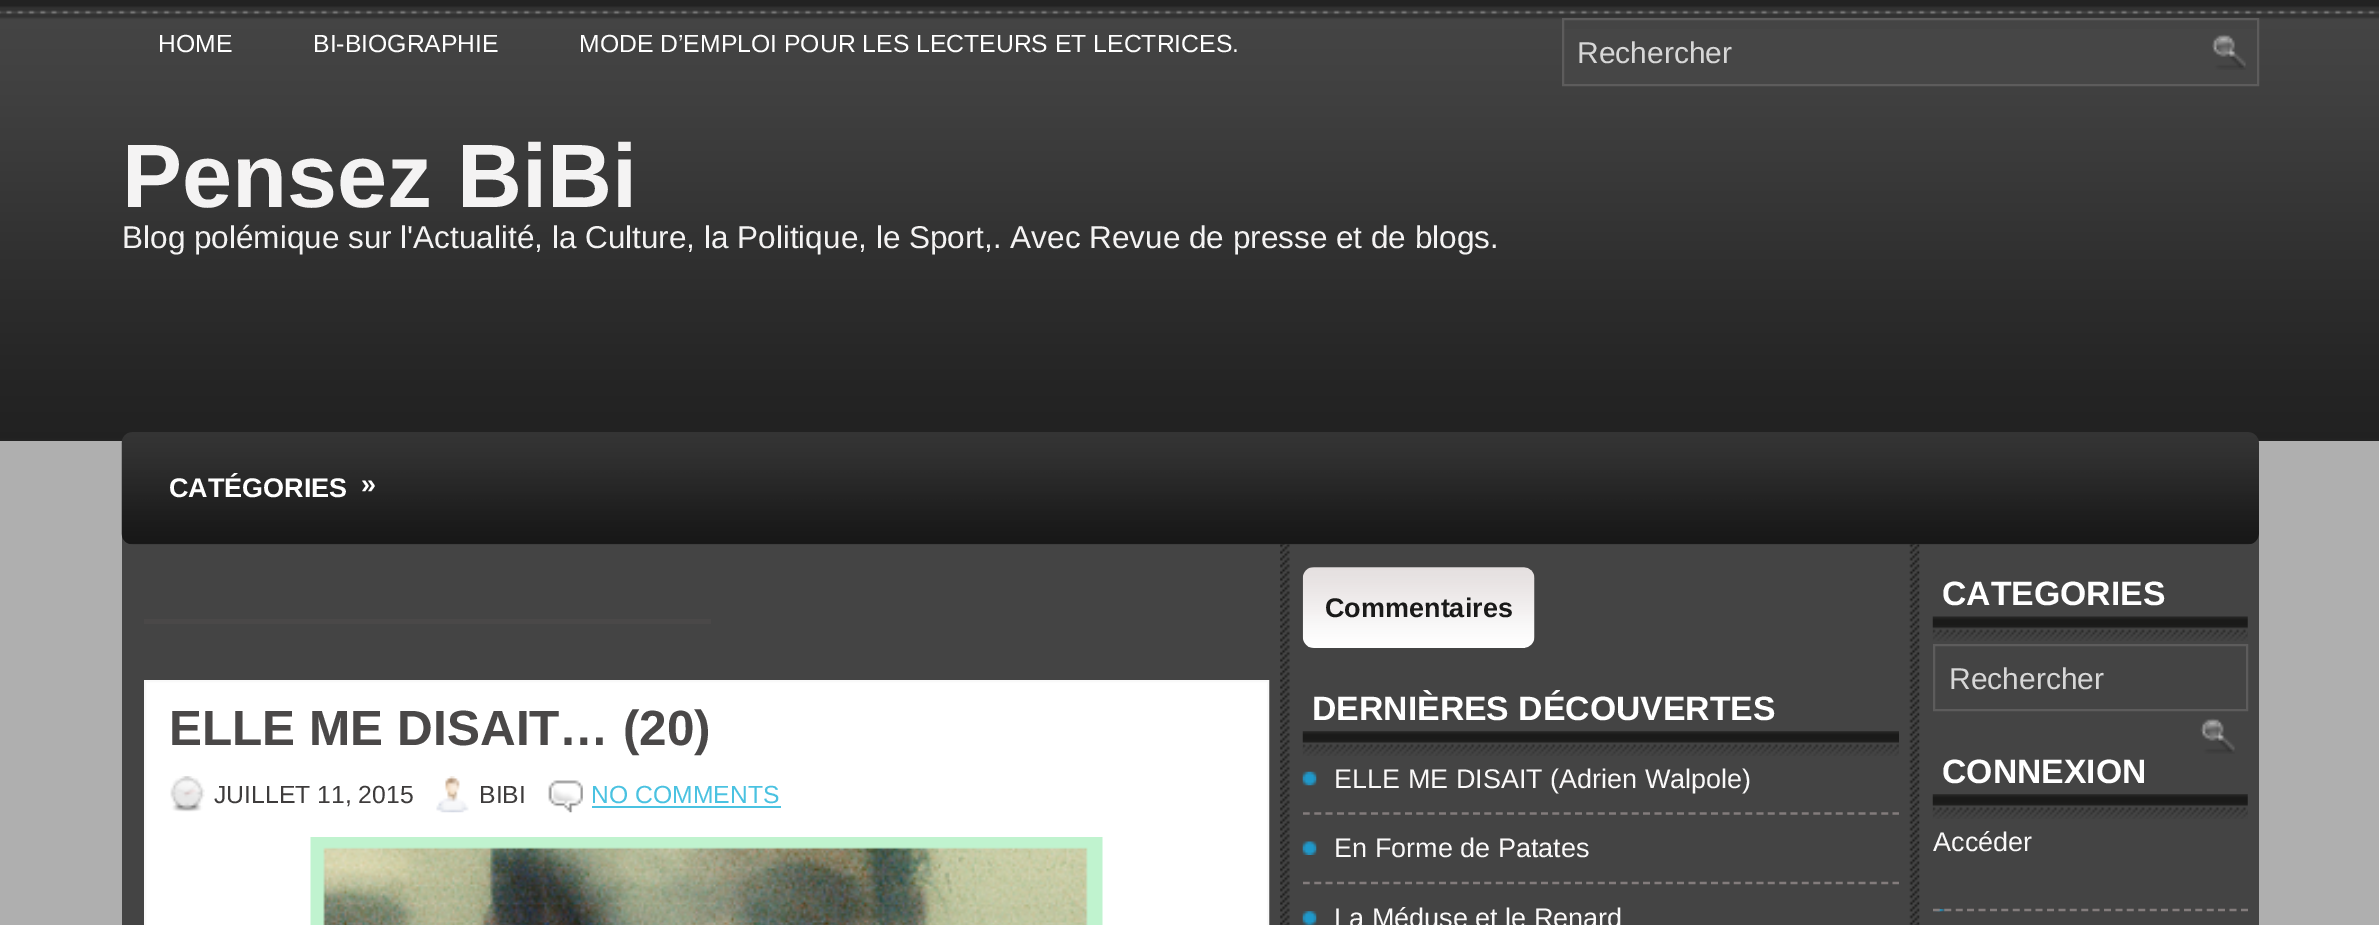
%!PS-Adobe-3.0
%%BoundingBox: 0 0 2379 925
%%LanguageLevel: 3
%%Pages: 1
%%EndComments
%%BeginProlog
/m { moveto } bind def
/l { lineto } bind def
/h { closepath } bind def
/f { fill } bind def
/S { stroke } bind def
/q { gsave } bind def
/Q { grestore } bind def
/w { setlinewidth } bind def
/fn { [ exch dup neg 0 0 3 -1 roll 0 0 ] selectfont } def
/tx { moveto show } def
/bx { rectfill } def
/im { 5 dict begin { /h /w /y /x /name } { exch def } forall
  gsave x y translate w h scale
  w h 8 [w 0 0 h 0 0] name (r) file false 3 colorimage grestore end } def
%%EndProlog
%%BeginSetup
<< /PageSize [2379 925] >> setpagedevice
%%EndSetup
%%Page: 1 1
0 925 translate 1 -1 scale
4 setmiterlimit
0.686 setgray
0 0 2379 925 bx
(image0.raw) 0 0 2379 441 im
/LiberationSans-Regular 24.75 fn
1 setgray
(HOME) 158 52 tx
(BI-BIOGRAPHIE) 313 52 tx
(MODE D’EMPLOI POUR LES LECTEURS ET LECTRICES.) 579 52 tx
0.275 setgray
1564 29 693 55 bx
0.365 0.361 0.361 setrgbcolor
2 w
1563 19 695 66 rectstroke
/LiberationSans-Regular 30 fn
0.843 setgray
(Rechercher) 1577 63 tx
(image1.raw) 2212 34 34 36 im
/LiberationSans-Bold 90 fn
0.957 0.953 0.953 setrgbcolor
(Pensez BiBi) 122 207 tx
/LiberationSans-Regular 31.5 fn
(Blog polémique sur l'Actualité, la Culture, la Politique, le Sport,. Avec Revue de presse et de blogs.) 122 248 tx
0.267 setgray
122 534 2137 391 bx
(image3.raw) 1280 543 640 382 im
(image2.raw) 121 432 2138 113 im
/LiberationSans-Bold 27 fn
1 setgray
(CATÉGORIES) 169 497 tx
(») 361 493 tx
0.29 0.282 0.282 setrgbcolor
144 619 567 5 bx
1 setgray
145 681 m 1268 681 l 1268 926 l 145 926 l h q f Q
0.976 setgray
S
/LiberationSans-Bold 49.5 fn
0.29 0.282 0.282 setrgbcolor
(ELLE ME DISAIT… \(20\)) 169 745 tx
(image4.raw) 170 776 35 36 im
/LiberationSans-Regular 24.75 fn
0.243 0.235 0.235 setrgbcolor
(JUILLET 11, 2015) 214 803 tx
(image5.raw) 436 776 33 37 im
(BIBI) 479 803 tx
(image6.raw) 548 780 35 33 im
0.29 0.761 0.882 setrgbcolor
(NO COMMENTS) 591 803 tx
592 806 189 2 bx
(image7.raw) 310 837 793 88 im
(image8.raw) 1302 567 233 81 im
/LiberationSans-Bold 27 fn
0.102 0.102 0.098 setrgbcolor
(Commentaires) 1325 617 tx
(image9.raw) 1302 731 597 25 im
/LiberationSans-Bold 33.75 fn
1 setgray
(DERNIÈRES DÉCOUVERTES) 1312 720 tx
(image10.raw) 1302 771 15 15 im
0.514 0.486 0.486 setrgbcolor
2.2 w
[6.75 4.59] 0 setdash
1303 813.5 m 1899 813.5 l S
/LiberationSans-Regular 27 fn
0.98 0.976 0.976 setrgbcolor
(ELLE ME DISAIT \(Adrien Walpole\)) 1334 788 tx
(image11.raw) 1302 841 15 14 im
0.514 0.486 0.486 setrgbcolor
1303 883 m 1899 883 l S
0.98 0.976 0.976 setrgbcolor
(En Forme de Patates) 1334 857 tx
(image12.raw) 1302 911 15 14 im
(La Méduse et le Renard) 1334 927 tx
(image13.raw) 1932 616 316 25 im
/LiberationSans-Bold 33.75 fn
1 setgray
(CATEGORIES) 1942 605 tx
0.365 0.361 0.361 setrgbcolor
2 w
[] 0 setdash
1934 645 313 65 rectstroke
/LiberationSans-Regular 30 fn
0.843 setgray
(Rechercher) 1949 689 tx
(image14.raw) 2200 718 35 36 im
(image15.raw) 1932 794 316 25 im
/LiberationSans-Bold 33.75 fn
1 setgray
(CONNEXION) 1942 783 tx
/LiberationSans-Regular 27 fn
0.98 0.976 0.976 setrgbcolor
(Accéder) 1933 851 tx
(image16.raw) 1933 909 13 3 im
0.514 0.486 0.486 setrgbcolor
2.2 w
[6.75 4.66] 0 setdash
1933 910 m 2248 910 l S
showpage
%%EOF
